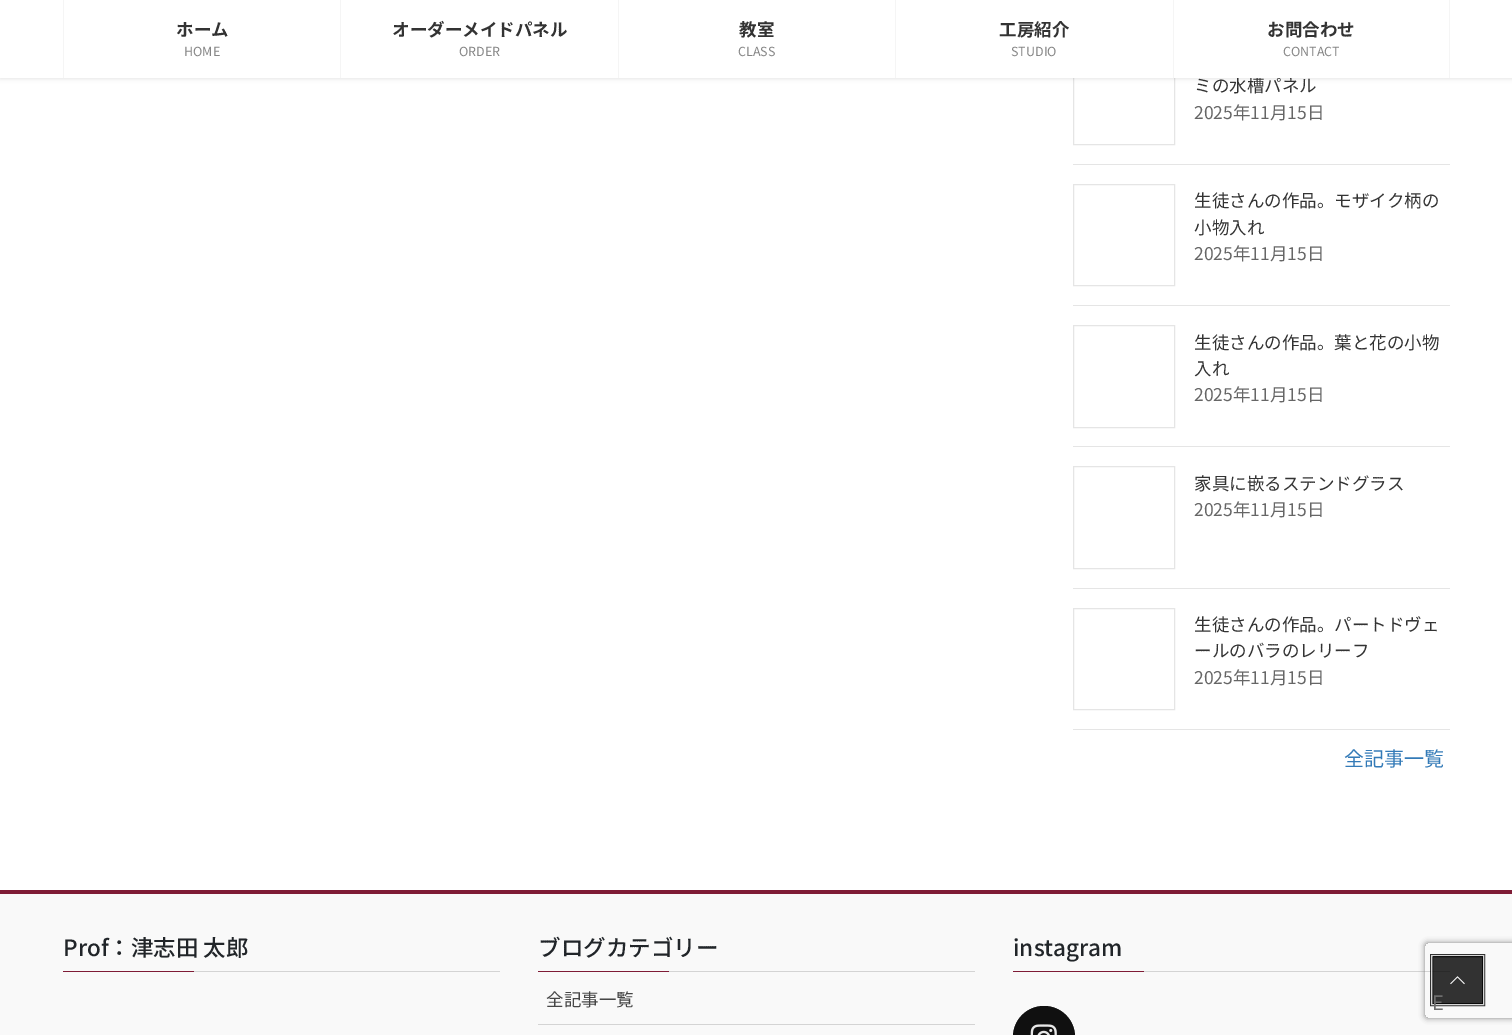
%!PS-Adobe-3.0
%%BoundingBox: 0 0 1512 1035
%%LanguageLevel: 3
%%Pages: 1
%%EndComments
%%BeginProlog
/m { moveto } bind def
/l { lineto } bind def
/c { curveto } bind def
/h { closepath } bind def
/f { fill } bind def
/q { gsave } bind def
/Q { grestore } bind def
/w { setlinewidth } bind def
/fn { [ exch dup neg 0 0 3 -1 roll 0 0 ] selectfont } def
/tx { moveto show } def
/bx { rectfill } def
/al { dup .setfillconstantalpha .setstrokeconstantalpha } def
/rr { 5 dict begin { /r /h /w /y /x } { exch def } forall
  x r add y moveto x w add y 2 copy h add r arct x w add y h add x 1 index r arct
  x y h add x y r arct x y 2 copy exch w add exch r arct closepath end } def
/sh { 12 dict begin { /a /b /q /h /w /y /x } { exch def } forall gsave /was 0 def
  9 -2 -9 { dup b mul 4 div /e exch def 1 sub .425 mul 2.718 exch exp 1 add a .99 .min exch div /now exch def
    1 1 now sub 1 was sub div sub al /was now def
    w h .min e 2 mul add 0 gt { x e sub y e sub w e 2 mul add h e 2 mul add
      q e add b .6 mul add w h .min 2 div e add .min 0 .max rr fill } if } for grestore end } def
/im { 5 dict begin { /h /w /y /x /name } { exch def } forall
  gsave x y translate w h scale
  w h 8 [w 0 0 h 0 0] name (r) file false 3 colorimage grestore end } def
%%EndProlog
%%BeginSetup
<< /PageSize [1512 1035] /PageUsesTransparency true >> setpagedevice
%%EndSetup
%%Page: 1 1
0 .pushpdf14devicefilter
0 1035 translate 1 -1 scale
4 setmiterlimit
1 setgray
0 0 1512 1035 bx
0.898 setgray
1073.5 43.5 101 101 rectstroke
0 setgray
0 1 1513 78 0 2 0.1 sh
/NotoSansJP-Regular 17.5 fn
0.2 setgray
(ミの水槽パネル) 1194 92 tx
1 setgray
0 0 1512 78 bx
0.961 setgray
63 0 1 78 bx
/NotoSansJP-Bold 17.5 fn
0.2 setgray
(ホーム) 176 36 tx
/NotoSansJP-Regular 12.5 fn
0.522 setgray
(HOME) 184 56 tx
0.961 setgray
340 0 1 78 bx
/NotoSansJP-Bold 17.5 fn
0.2 setgray
(オーダーメイドパネル) 392 36 tx
/NotoSansJP-Regular 12.5 fn
0.522 setgray
(ORDER) 459 56 tx
0.961 setgray
618 0 1 78 bx
/NotoSansJP-Bold 17.5 fn
0.2 setgray
(教室) 739 36 tx
/NotoSansJP-Regular 12.5 fn
0.522 setgray
(CLASS) 738 56 tx
0.961 setgray
895 0 1 78 bx
/NotoSansJP-Bold 17.5 fn
0.2 setgray
(工房紹介) 999 36 tx
/NotoSansJP-Regular 12.5 fn
0.522 setgray
(STUDIO) 1011 56 tx
0.961 setgray
1449 0 1 78 bx
1173 0 1 78 bx
/NotoSansJP-Bold 17.5 fn
0.2 setgray
(お問合わせ) 1267 36 tx
/NotoSansJP-Regular 12.5 fn
0.522 setgray
(CONTACT) 1283 56 tx
0.898 setgray
1073 164 377 1 bx
/NotoSansJP-Regular 17.5 fn
0.4 setgray
(2025年11月15日) 1194 119 tx
0.898 setgray
1073 305 377 1 bx
1073.5 184.5 101 101 rectstroke
0.2 setgray
(生徒さんの作品。モザイク柄の) 1194 207 tx
(小物入れ) 1194 234 tx
0.4 setgray
(2025年11月15日) 1194 260 tx
0.898 setgray
1073 446 377 1 bx
1073.5 325.5 101 102 rectstroke
0.2 setgray
(生徒さんの作品。葉と花の小物) 1194 349 tx
(入れ) 1194 375 tx
0.4 setgray
(2025年11月15日) 1194 401 tx
0.898 setgray
1073 588 377 1 bx
1073.5 466.5 101 102 rectstroke
0.2 setgray
(家具に嵌るステンドグラス) 1194 490 tx
0.4 setgray
(2025年11月15日) 1194 516 tx
0.898 setgray
1073 729 377 1 bx
1073.5 608.5 101 101 rectstroke
0.2 setgray
(生徒さんの作品。パートドヴェ) 1194 631 tx
(ールのバラのレリーフ) 1194 657 tx
0.4 setgray
(2025年11月15日) 1194 684 tx
/NotoSansJP-Regular 20 fn
0.2 0.478 0.718 setrgbcolor
(全記事一覧) 1344 766 tx
0.976 setgray
0 894 1512 141 bx
0.498 0.11 0.212 setrgbcolor
0 890 1512 4 bx
0.831 setgray
194 971 306 1 bx
/NotoSansJP-Medium 22.5 fn
0.129 0.145 0.161 setrgbcolor
(Prof：津志田 太郎) 63 956 tx
0.498 0.11 0.212 setrgbcolor
63 971 131 1 bx
0.831 setgray
669 971 306 1 bx
0.129 0.145 0.161 setrgbcolor
(ブログカテゴリー) 538 956 tx
0.498 0.11 0.212 setrgbcolor
538 971 131 1 bx
0.831 setgray
538 1024 437 1 bx
/NotoSansJP-Regular 17.5 fn
0.275 setgray
(全記事一覧) 546 1006 tx
0.831 setgray
1144 971 306 1 bx
/NotoSansJP-Medium 22.5 fn
0.129 0.145 0.161 setrgbcolor
(instagram) 1013 956 tx
0.498 0.11 0.212 setrgbcolor
1013 971 131 1 bx
0.2 setgray
1013 1006 62 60 31 rr f
0.68 al
0 setgray
1013 1006 62 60 31 rr f
1 al
(image0.raw) 1030 1024 27 11 im
q
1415 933 m 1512 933 l 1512 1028 l 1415 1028 l h 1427.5 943 m 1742.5 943 l 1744 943 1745 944 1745 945.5 c 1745 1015.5 l 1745 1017 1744 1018 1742.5 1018 c 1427.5 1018 l 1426 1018 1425 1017 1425 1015.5 c 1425 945.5 l 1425 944 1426 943 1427.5 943 c h eoclip newpath
0.502 setgray
1425 943 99 75 2.5 3 1 sh
Q
0.8 al
3 w
1431.5 955.5 52 49 rectstroke
1 setgray
1 w
1431.5 955.5 52 49 rectstroke
0 setgray
1433 956 50 48 bx
1 al
(image1.raw) 1450 976 15 9 im
/NotoSansJP-Regular 20 fn
0.427 setgray
(E) 1432 1010 tx
.poppdf14devicefilter showpage
%%EOF
